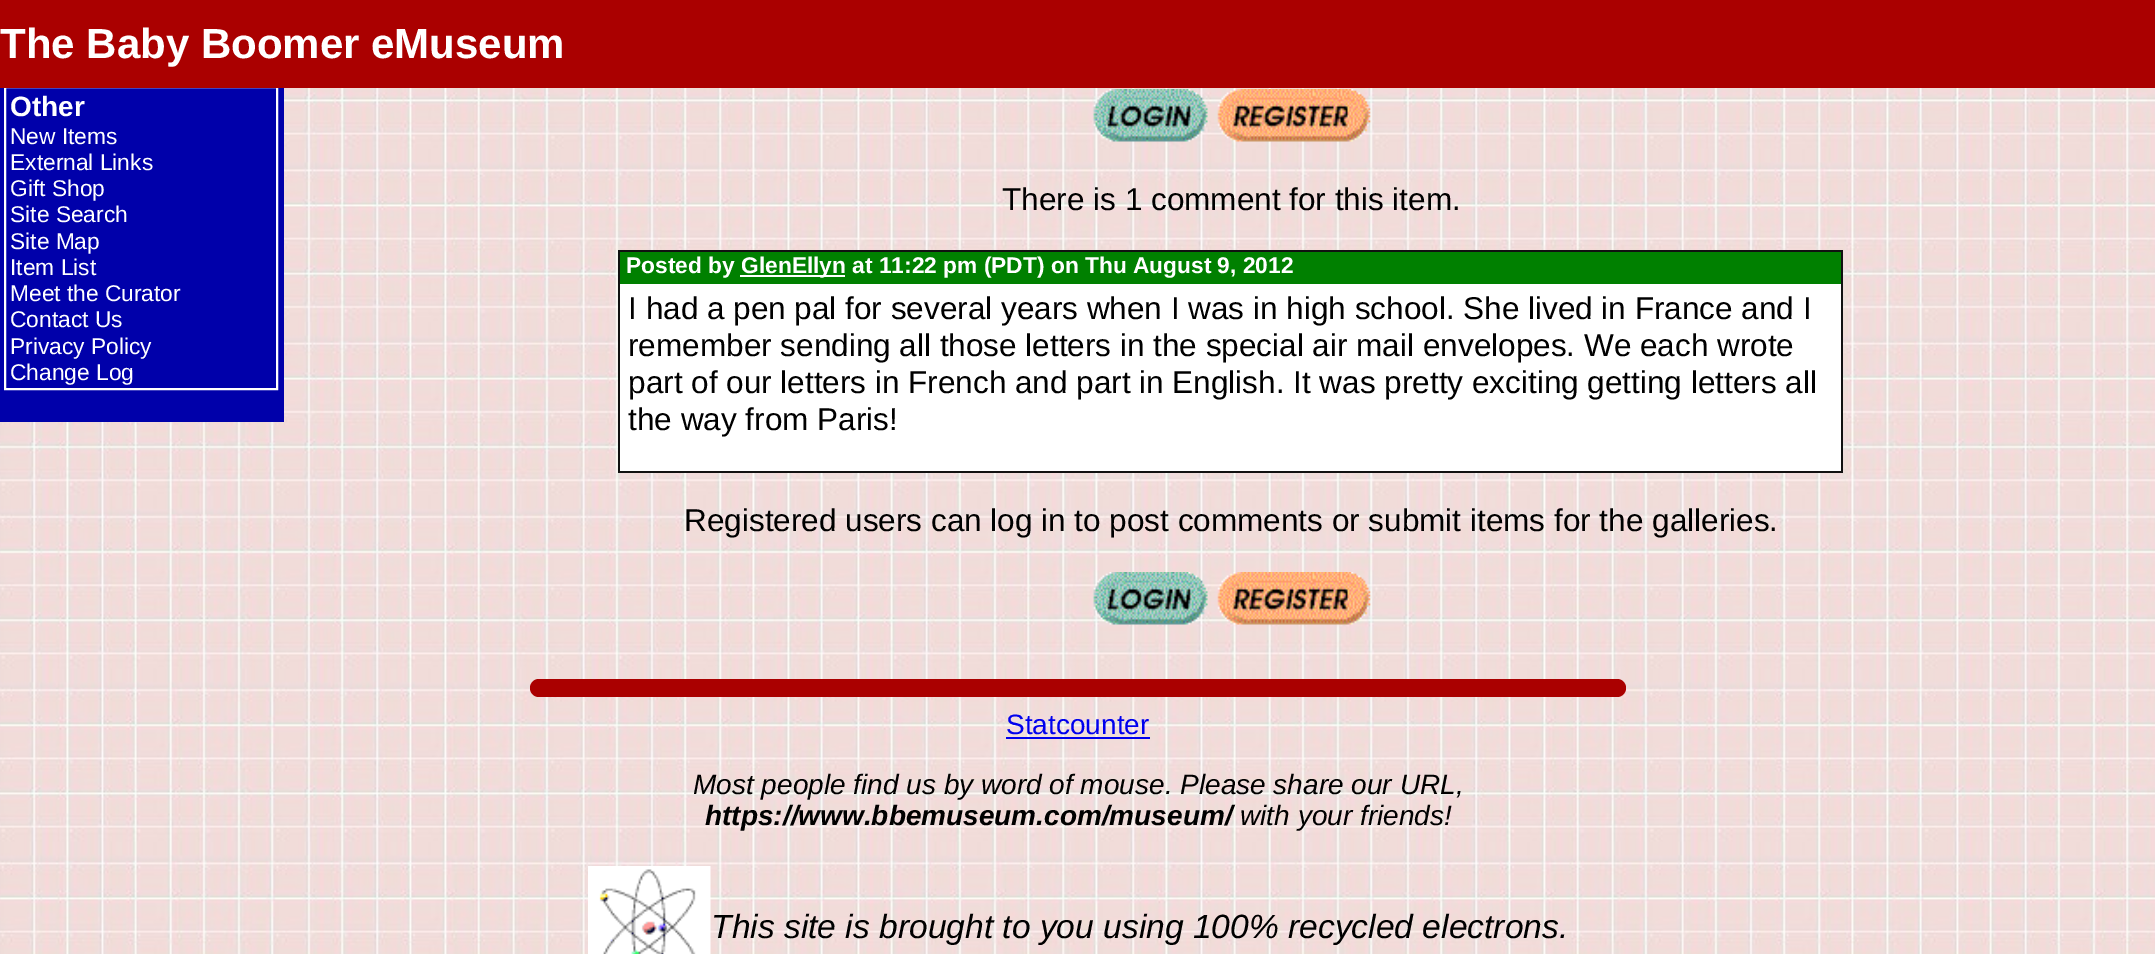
%!PS-Adobe-3.0
%%BoundingBox: 0 0 2155 954
%%LanguageLevel: 3
%%Pages: 1
%%EndComments
%%BeginProlog
/f { fill } bind def
/w { setlinewidth } bind def
/fn { [ exch dup neg 0 0 3 -1 roll 0 0 ] selectfont } def
/tx { moveto show } def
/bx { rectfill } def
/rr { 5 dict begin { /r /h /w /y /x } { exch def } forall
  x r add y moveto x w add y 2 copy h add r arct x w add y h add x 1 index r arct
  x y h add x y r arct x y 2 copy exch w add exch r arct closepath end } def
/im { 5 dict begin { /h /w /y /x /name } { exch def } forall
  gsave x y translate w h scale
  w h 8 [w 0 0 h 0 0] name (r) file false 3 colorimage grestore end } def
%%EndProlog
%%BeginSetup
<< /PageSize [2155 954] >> setpagedevice
%%EndSetup
%%Page: 1 1
0 954 translate 1 -1 scale
4 setmiterlimit
1 setgray
0 0 2155 954 bx
(image0.raw) 0 88 2155 866 im
0 0 0.667 setrgbcolor
0 88 284 334 bx
1 setgray
2 w
5 87 272 302 rectstroke
0.667 0 0 setrgbcolor
0 0 2155 88 bx
/LiberationSans-Bold 42 fn
1 setgray
(The Baby Boomer eMuseum) 0 58 tx
/LiberationSans-Bold 28 fn
(Other) 10 116 tx
/LiberationSans-Regular 22.75 fn
(New Items) 10 144 tx
(External Links) 10 170 tx
(Gift Shop) 10 196 tx
(Site Search) 10 222 tx
(Site Map) 10 249 tx
(Item List) 10 275 tx
(Meet the Curator) 10 301 tx
(Contact Us) 10 327 tx
(Privacy Policy) 10 354 tx
(Change Log) 10 380 tx
(image1.raw) 1093 89 115 53 im
(image2.raw) 1217 89 154 53 im
/LiberationSans-Regular 31.5 fn
0 setgray
(There is 1 comment for this item.) 1002 210 tx
1 setgray
620 284 1221 187 bx
0.067 setgray
618 250 1225 2 bx
1841 250 2 223 bx
618 471 1225 2 bx
618 250 2 223 bx
0 0.502 0 setrgbcolor
620 252 1221 32 bx
/LiberationSans-Bold 22.75 fn
1 setgray
(Posted by) 626 273 tx
740 275 105 2 bx
(GlenEllyn at 11:22 pm \(PDT\) on Thu August 9, 2012) 741 273 tx
/LiberationSans-Regular 31.5 fn
0 setgray
(I had a pen pal for several years when I was in high school. She lived in France and I) 628 319 tx
(remember sending all those letters in the special air mail envelopes. We each wrote) 628 356 tx
(part of our letters in French and part in English. It was pretty exciting getting letters all) 628 393 tx
(the way from Paris!) 628 430 tx
(Registered users can log in to post comments or submit items for the galleries.) 684 531 tx
(image3.raw) 1093 572 115 53 im
(image4.raw) 1217 572 154 53 im
0.667 0 0 setrgbcolor
530 679 1096 18 9 rr f
/LiberationSans-Regular 28 fn
0 0 0.933 setrgbcolor
(Statcounter) 1006 734 tx
1006 737 144 2 bx
/LiberationSans-Italic 28 fn
0 setgray
(Most people find us by word of mouse. Please share our URL,) 693 794 tx
/LiberationSans-BoldItalic 28 fn
(https://www.bbemuseum.com/museum/) 705 825 tx
/LiberationSans-Italic 28 fn
(with your friends!) 1240 825 tx
(image5.raw) 588 866 123 88 im
/LiberationSans-Italic 33.6 fn
(This site is brought to you using 100% recycled electrons.) 711 938 tx
showpage
%%EOF
